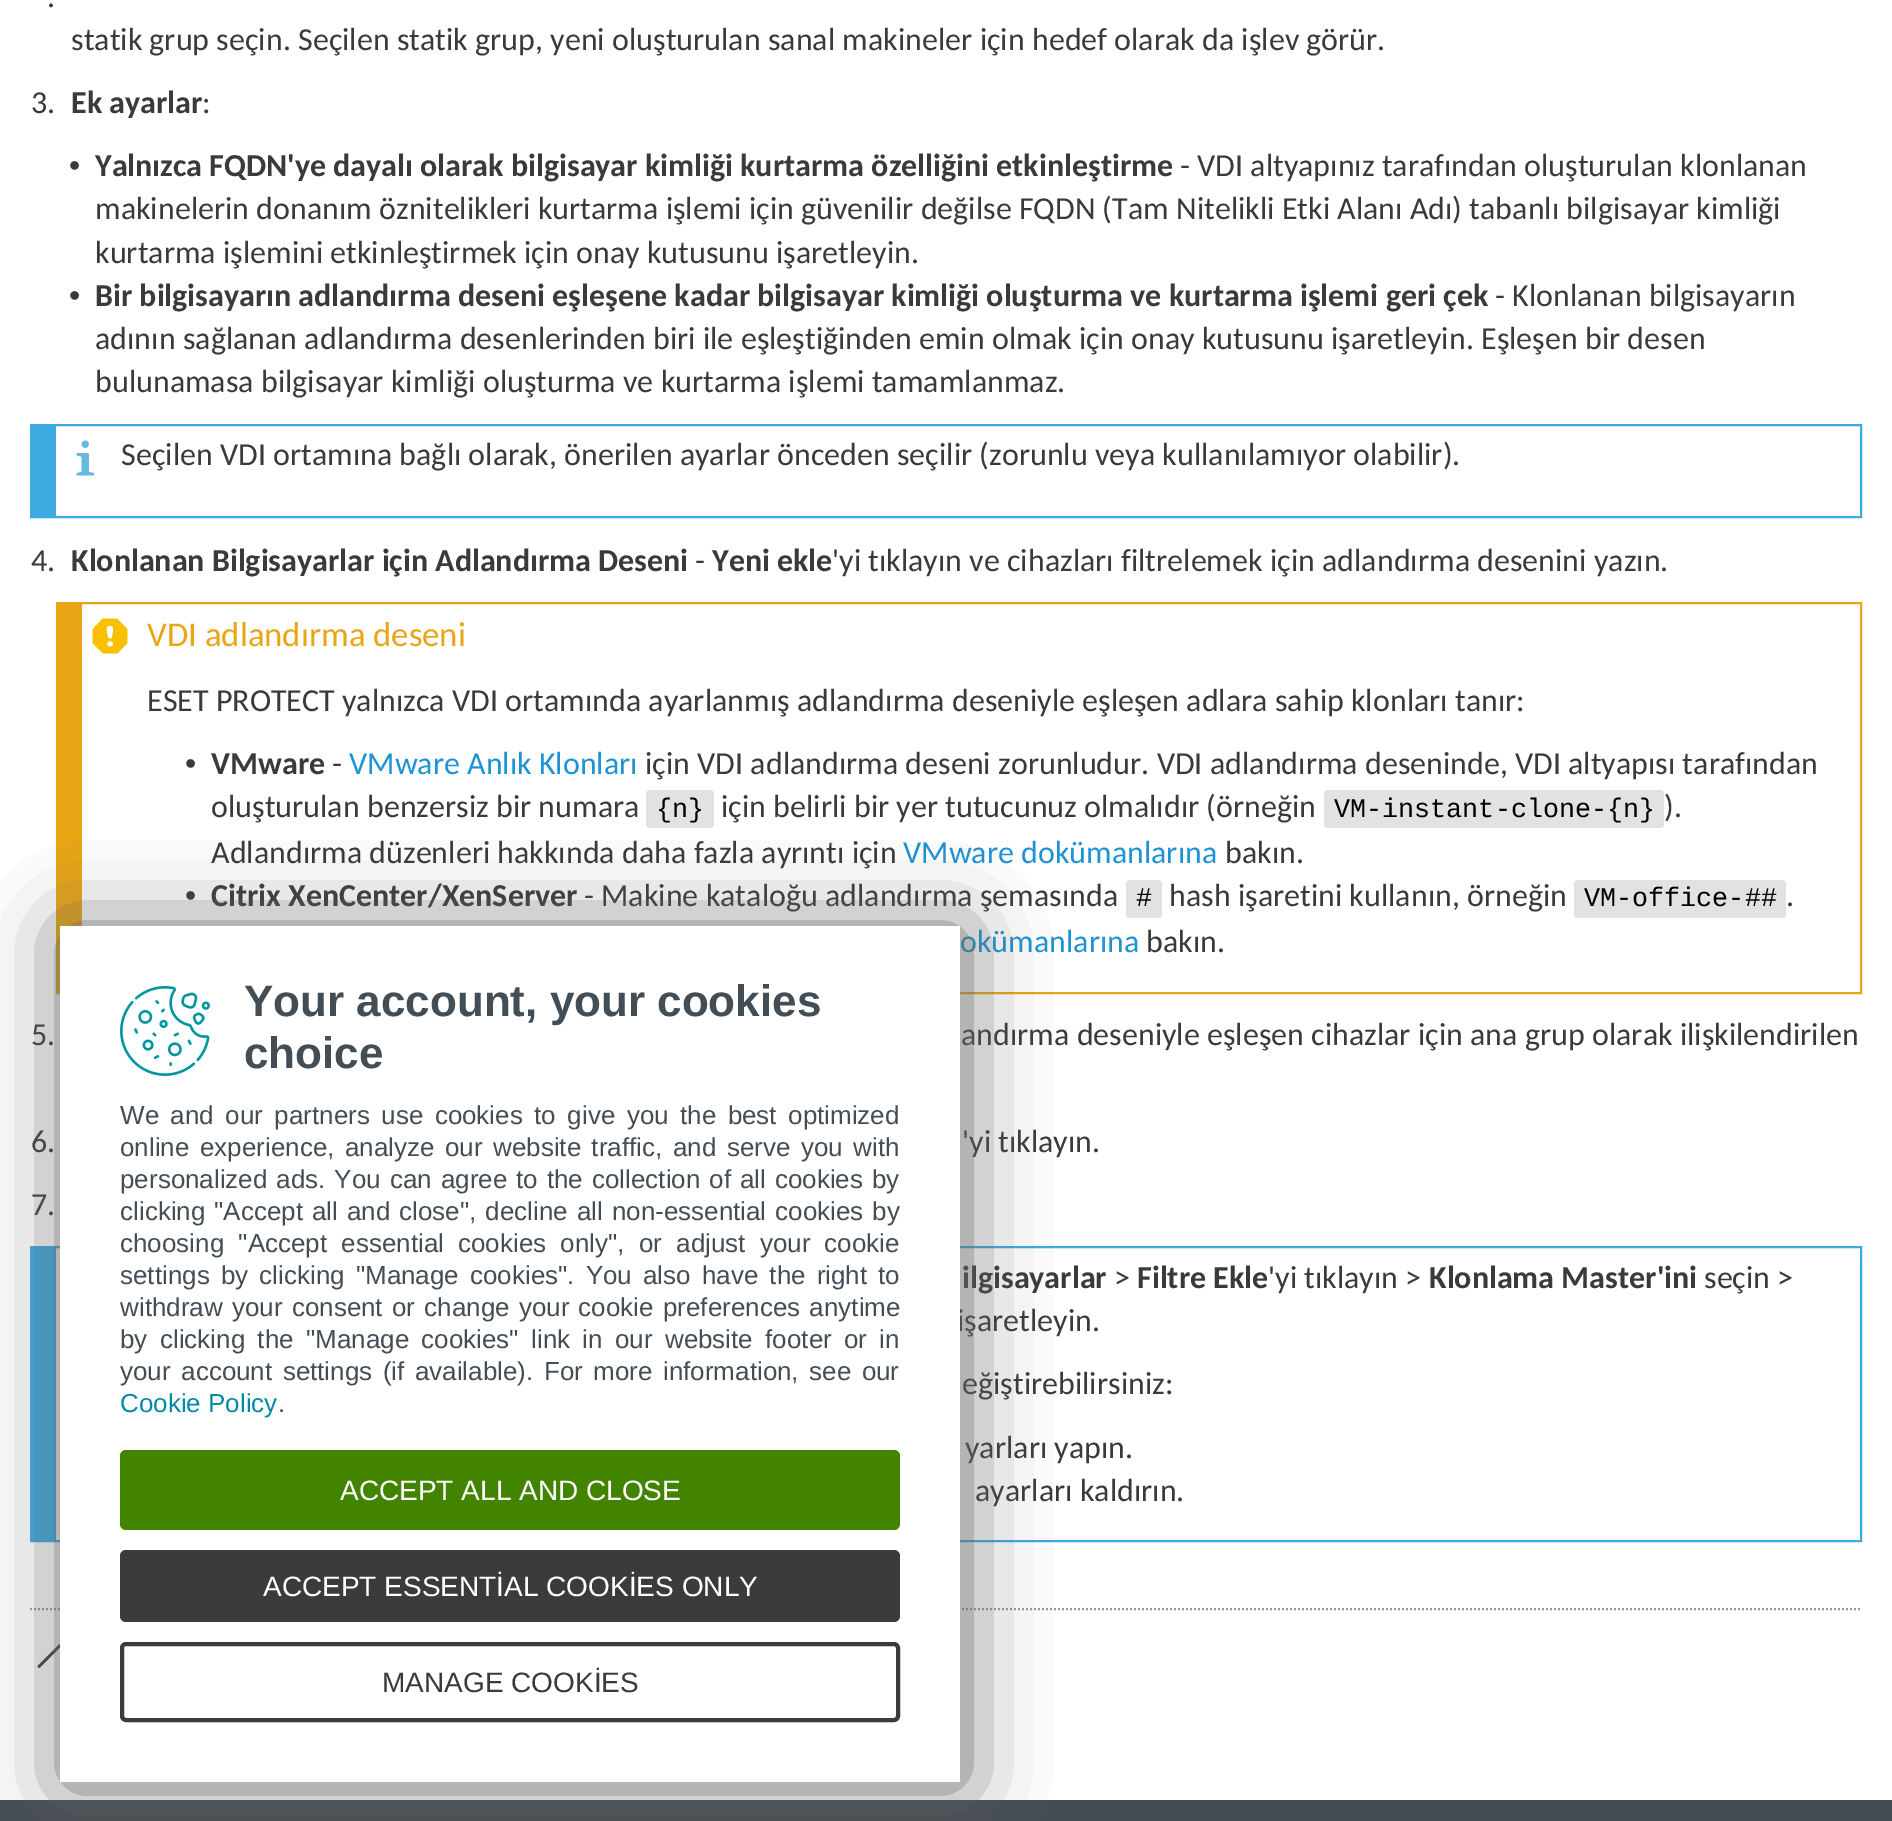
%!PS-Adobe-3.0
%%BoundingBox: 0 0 1892 1821
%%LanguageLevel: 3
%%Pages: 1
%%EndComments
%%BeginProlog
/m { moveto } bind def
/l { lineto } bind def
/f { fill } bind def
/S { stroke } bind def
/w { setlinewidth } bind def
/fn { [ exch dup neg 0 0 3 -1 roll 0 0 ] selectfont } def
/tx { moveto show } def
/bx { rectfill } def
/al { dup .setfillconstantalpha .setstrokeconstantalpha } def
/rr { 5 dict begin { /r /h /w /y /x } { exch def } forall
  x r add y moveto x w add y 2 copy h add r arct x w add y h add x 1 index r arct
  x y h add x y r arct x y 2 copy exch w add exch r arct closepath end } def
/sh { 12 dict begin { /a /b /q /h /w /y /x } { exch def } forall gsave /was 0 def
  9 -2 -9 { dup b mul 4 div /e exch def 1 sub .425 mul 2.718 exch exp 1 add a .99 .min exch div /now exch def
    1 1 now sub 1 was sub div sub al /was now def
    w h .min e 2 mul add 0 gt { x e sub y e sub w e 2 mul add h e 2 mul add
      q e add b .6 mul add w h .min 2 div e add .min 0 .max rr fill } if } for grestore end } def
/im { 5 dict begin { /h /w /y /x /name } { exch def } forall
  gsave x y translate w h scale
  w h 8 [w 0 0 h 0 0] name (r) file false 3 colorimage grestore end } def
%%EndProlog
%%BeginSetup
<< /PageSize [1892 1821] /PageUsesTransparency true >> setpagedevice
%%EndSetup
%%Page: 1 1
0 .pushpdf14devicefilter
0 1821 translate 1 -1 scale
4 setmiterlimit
1 setgray
0 0 1892 1821 bx
/Carlito-Regular 32 fn
0.227 setgray
(.) 47 7 tx
(statik grup seçin. Seçilen statik grup, yeni oluşturulan sanal makineler için hedef olarak da işlev görür.) 71 50 tx
(3.) 31 113 tx
/Carlito-Bold 32 fn
(Ek ayarlar) 71 113 tx
/Carlito-Regular 32 fn
(:) 202 113 tx
/LiberationSans-Regular 32 fn
(•) 69 176 tx
/Carlito-Bold 32 fn
(Yalnızca FQDN'ye dayalı olarak bilgisayar kimliği kurtarma özelliğini etkinleştirme) 95 176 tx
/Carlito-Regular 32 fn
(- VDI altyapınız tarafından oluşturulan klonlanan) 1180 176 tx
(makinelerin donanım öznitelikleri kurtarma işlemi için güvenilir değilse FQDN \(Tam Nitelikli Etki Alanı Adı\) tabanlı bilgisayar kimliği) 95 219 tx
(kurtarma işlemini etkinleştirmek için onay kutusunu işaretleyin.) 95 263 tx
/LiberationSans-Regular 32 fn
(•) 69 306 tx
/Carlito-Bold 32 fn
(Bir bilgisayarın adlandırma deseni eşleşene kadar bilgisayar kimliği oluşturma ve kurtarma işlemi geri çek) 95 306 tx
/Carlito-Regular 32 fn
(- Klonlanan bilgisayarın) 1495 306 tx
(adının sağlanan adlandırma desenlerinden biri ile eşleştiğinden emin olmak için onay kutusunu işaretleyin. Eşleşen bir desen) 95 349 tx
(bulunamasa bilgisayar kimliği oluşturma ve kurtarma işlemi tamamlanmaz.) 95 392 tx
0.239 0.667 0.882 setrgbcolor
2 w
31 425 1830 92 rectstroke
32 426 24 90 bx
(image0.raw) 76 440 18 36 im
0.227 setgray
(Seçilen VDI ortamına bağlı olarak, önerilen ayarlar önceden seçilir \(zorunlu veya kullanılamıyor olabilir\).) 121 465 tx
(4.) 31 571 tx
/Carlito-Bold 32 fn
(Klonlanan Bilgisayarlar için Adlandırma Deseni) 71 571 tx
/Carlito-Regular 32 fn
(-) 695 571 tx
/Carlito-Bold 32 fn
(Yeni ekle) 712 571 tx
/Carlito-Regular 32 fn
('yi tıklayın ve cihazları filtrelemek için adlandırma desenini yazın.) 832 571 tx
0.914 0.647 0.078 setrgbcolor
57 603 1804 390 rectstroke
58 604 24 388 bx
(image1.raw) 92 618 36 36 im
/Carlito-Regular 34.75 fn
(VDI adlandırma deseni) 147 646 tx
/Carlito-Regular 32 fn
0.227 setgray
(ESET PROTECT yalnızca VDI ortamında ayarlanmış adlandırma deseniyle eşleşen adlara sahip klonları tanır:) 147 711 tx
/LiberationSans-Regular 32 fn
(•) 185 774 tx
/Carlito-Bold 32 fn
(VMware) 211 774 tx
/Carlito-Regular 32 fn
(-) 332 774 tx
0.11 0.576 0.831 setrgbcolor
(VMware Anlık Klonları) 349 774 tx
0.227 setgray
(için VDI adlandırma deseni zorunludur. VDI adlandırma deseninde, VDI altyapısı tarafından) 645 774 tx
(oluşturulan benzersiz bir numara) 211 817 tx
0.886 setgray
646 790 68 38 4 rr f
/LiberationMono-Regular 26.75 fn
0 setgray
({n}) 656 817 tx
/Carlito-Regular 32 fn
0.227 setgray
(için belirli bir yer tutucunuz olmalıdır \(örneğin) 721 817 tx
0.886 setgray
1324 790 340 38 4 rr f
/LiberationMono-Regular 26.75 fn
0 setgray
(VM-instant-clone-{n}) 1334 817 tx
/Carlito-Regular 32 fn
0.227 setgray
(\).) 1664 817 tx
(Adlandırma düzenleri hakkında daha fazla ayrıntı için) 211 863 tx
0.11 0.576 0.831 setrgbcolor
(VMware dokümanlarına) 903 863 tx
0.227 setgray
(bakın.) 1225 863 tx
/LiberationSans-Regular 32 fn
(•) 185 906 tx
/Carlito-Bold 32 fn
(Citrix XenCenter/XenServer) 211 906 tx
/Carlito-Regular 32 fn
(- Makine kataloğu adlandırma şemasında) 584 906 tx
0.886 setgray
1126 880 36 38 4 rr f
/LiberationMono-Regular 26.75 fn
0 setgray
(#) 1136 906 tx
/Carlito-Regular 32 fn
0.227 setgray
(hash işaretini kullanın, örneğin) 1169 906 tx
0.886 setgray
1574 880 212 38 4 rr f
/LiberationMono-Regular 26.75 fn
0 setgray
(VM-office-##) 1584 906 tx
/Carlito-Regular 32 fn
0.227 setgray
(.) 1786 906 tx
0.11 0.576 0.831 setrgbcolor
(okümanlarına) 960 952 tx
0.227 setgray
(bakın.) 1146 952 tx
(5.) 31 1045 tx
(andırma deseniyle eşleşen cihazlar için ana grup olarak ilişkilendirilen) 961 1045 tx
(6.) 31 1152 tx
('yi tıklayın.) 962 1152 tx
(7.) 31 1215 tx
0.239 0.667 0.882 setrgbcolor
31 1247 1830 294 rectstroke
32 1248 24 292 bx
/Carlito-Bold 32 fn
0.227 setgray
(ilgisayarlar) 962 1288 tx
/Carlito-Regular 32 fn
(>) 1114 1288 tx
/Carlito-Bold 32 fn
(Filtre Ekle) 1137 1288 tx
/Carlito-Regular 32 fn
('yi tıklayın >) 1268 1288 tx
/Carlito-Bold 32 fn
(Klonlama Master'ini) 1429 1288 tx
/Carlito-Regular 32 fn
(seçin >) 1704 1288 tx
(işaretleyin.) 957 1331 tx
(eğiştirebilirsiniz:) 962 1394 tx
(yarları yapın.) 965 1458 tx
(ayarları kaldırın.) 975 1501 tx
0.58 0.612 0.631 setrgbcolor
[2 2] 0 setdash
30 1609 m 1862 1609 l S
(image2.raw) 37 1644 23 24 im
0.271 0.298 0.322 setrgbcolor
0 1800 1892 21 bx
0.4 setgray
64 930 900 856 0 40 1 sh
1 setgray
60 926 900 856 bx
/LiberationSans-Bold 44 fn
0.259 0.302 0.337 setrgbcolor
(Your account, your cookies) 244 1016 tx
(choice) 244 1068 tx
/LiberationSans-Regular 26 fn
120 1124 m 4.25 0 32 (We and our partners use cookies to give you the best optimized) widthshow
120 1156 m 3.25 0 32 (online experience, analyze our website traffic, and serve you with) widthshow
120 1188 m 1.75 0 32 (personalized ads. You can agree to the collection of all cookies by) widthshow
120 1220 m 1.75 0 32 (clicking "Accept all and close", decline all non-essential cookies by) widthshow
120 1252 m 7 0 32 (choosing "Accept essential cookies only", or adjust your cookie) widthshow
120 1284 m 3.9 0 32 (settings by clicking "Manage cookies". You also have the right to) widthshow
120 1316 m 2 0 32 (withdraw your consent or change your cookie preferences anytime) widthshow
120 1348 m 5.1 0 32 (by clicking the "Manage cookies" link in our website footer or in) widthshow
120 1380 m 3.25 0 32 (your account settings \(if available\). For more information, see our) widthshow
0 0.545 0.627 setrgbcolor
(Cookie Policy) 120 1412 tx
0.259 0.302 0.337 setrgbcolor
(.) 278 1412 tx
(image3.raw) 120 986 90 90 im
0.259 0.518 0 setrgbcolor
120 1450 780 80 6 rr f
/LiberationSans-Regular 28 fn
1 setgray
(ACCEPT ALL AND CLOSE) 340 1500 tx
0.231 setgray
120 1550 780 72 6 rr f
1 setgray
(ACCEPT ESSENTİAL COOKİES ONLY) 263 1596 tx
0.231 setgray
4 w
[] 0 setdash
122 1644 776 76 4 rr S
0.227 setgray
(MANAGE COOKİES) 382 1692 tx
.poppdf14devicefilter showpage
%%EOF
